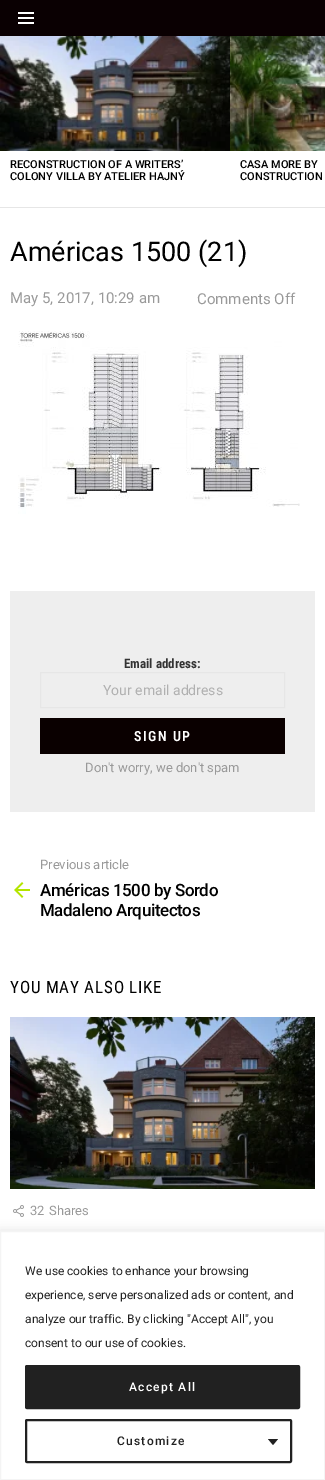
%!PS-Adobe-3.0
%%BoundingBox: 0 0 325 1480
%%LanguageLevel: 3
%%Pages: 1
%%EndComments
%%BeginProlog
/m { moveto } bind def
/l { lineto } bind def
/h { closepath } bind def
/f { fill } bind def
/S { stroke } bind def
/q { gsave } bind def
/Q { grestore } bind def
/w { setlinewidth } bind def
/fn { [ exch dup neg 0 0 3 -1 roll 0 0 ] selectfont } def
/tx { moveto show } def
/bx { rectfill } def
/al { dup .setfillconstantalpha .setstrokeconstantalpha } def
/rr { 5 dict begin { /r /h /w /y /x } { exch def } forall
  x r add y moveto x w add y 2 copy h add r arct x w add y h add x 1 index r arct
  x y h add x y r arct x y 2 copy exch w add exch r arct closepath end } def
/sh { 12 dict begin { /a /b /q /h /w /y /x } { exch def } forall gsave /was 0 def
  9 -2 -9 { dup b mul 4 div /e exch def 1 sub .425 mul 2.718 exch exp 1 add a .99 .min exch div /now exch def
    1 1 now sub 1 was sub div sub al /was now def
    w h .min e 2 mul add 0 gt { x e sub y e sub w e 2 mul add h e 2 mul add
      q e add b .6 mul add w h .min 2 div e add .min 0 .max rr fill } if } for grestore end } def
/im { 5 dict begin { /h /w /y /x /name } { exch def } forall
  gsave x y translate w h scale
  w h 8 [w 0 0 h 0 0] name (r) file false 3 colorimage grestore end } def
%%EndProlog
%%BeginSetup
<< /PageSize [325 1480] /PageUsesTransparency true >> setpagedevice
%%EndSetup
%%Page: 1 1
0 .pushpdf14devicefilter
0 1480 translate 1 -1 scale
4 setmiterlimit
1 setgray
0 0 325 1480 bx
0.039 0 0.008 setrgbcolor
0 0 325 36 bx
(image0.raw) 18 12 16 12 im
0.902 setgray
0 207 325 1 bx
(image1.raw) 0 36 230 115 im
/Roboto-Medium 11 fn
0 setgray
(RECONSTRUCTION OF A WRITERS’) 10 168 tx
(COLONY VILLA BY ATELIER HAJNÝ) 10 180 tx
(image2.raw) 230 36 95 115 im
(CASA MORE BY) 240 168 tx
(CONSTRUCTION) 240 180 tx
/Roboto-Regular 27 fn
(Américas 1500 \(21\)) 10 261 tx
/Roboto-Regular 15 fn
0.6 setgray
(May 5, 2017, 10:29 am) 10 303 tx
(Comments Off) 197 304 tx
(image3.raw) 18 331 282 183 im
0.933 setgray
10 591 305 221 bx
/RobotoCondensed-Bold 13 fn
0.2 setgray
(Email address:) 124 668 tx
0.902 setgray
40.5 672.5 244 35 rectstroke
/Roboto-Regular 14 fn
0.69 setgray
(Your email address) 103 695 tx
0.039 0 0 setrgbcolor
40 718 245 36 bx
/RobotoCondensed-SemiBold 14 fn
1 setgray
134 741 m 1.5 0 (SIGN UP) ashow
/Roboto-Regular 13 fn
0.6 setgray
(Don't worry, we don't spam) 85 772 tx
(Previous article) 40 869 tx
(image4.raw) 14 882 16 16 im
/Roboto-Medium 17 fn
0 setgray
40 896 m -0.4 0 (Américas 1500 by Sordo) ashow
40 916 m -0.4 0 (Madaleno Arquitectos) ashow
/RobotoCondensed-Regular 17 fn
10 993 m 0.8 0 (YOU MAY ALSO LIKE) ashow
(image5.raw) 10 1017 305 172 im
(image6.raw) 13 1205 11 12 im
/Roboto-Regular 13 fn
0.6 setgray
(32) 30 1215 tx
(Shares) 49 1215 tx
0.675 0.671 0.671 setrgbcolor
0 1230 325 249 0 5 0.3 sh
1 setgray
0.5 1231.5 m 324.5 1231.5 l 324.5 1479.5 l 0.5 1479.5 l h q f Q
0.957 setgray
S
/Roboto-Regular 12 fn
0.129 setgray
(We use cookies to enhance your browsing) 25 1275 tx
(experience, serve personalized ads or content, and) 25 1299 tx
(analyze our traffic. By clicking "Accept All", you) 25 1323 tx
(consent to our use of cookies.) 25 1347 tx
26 1366 273 42 1 rr q f Q
2 w
S
/Roboto-Medium 12 fn
1 setgray
129 1391 m 1.25 0 (Accept All) ashow
0.129 setgray
26 1420 265 42 1 rr S
117 1445 m 1.25 0 (Customize) ashow
268 1439 m 278 1439 l 273 1445 l h f
.poppdf14devicefilter showpage
%%EOF
